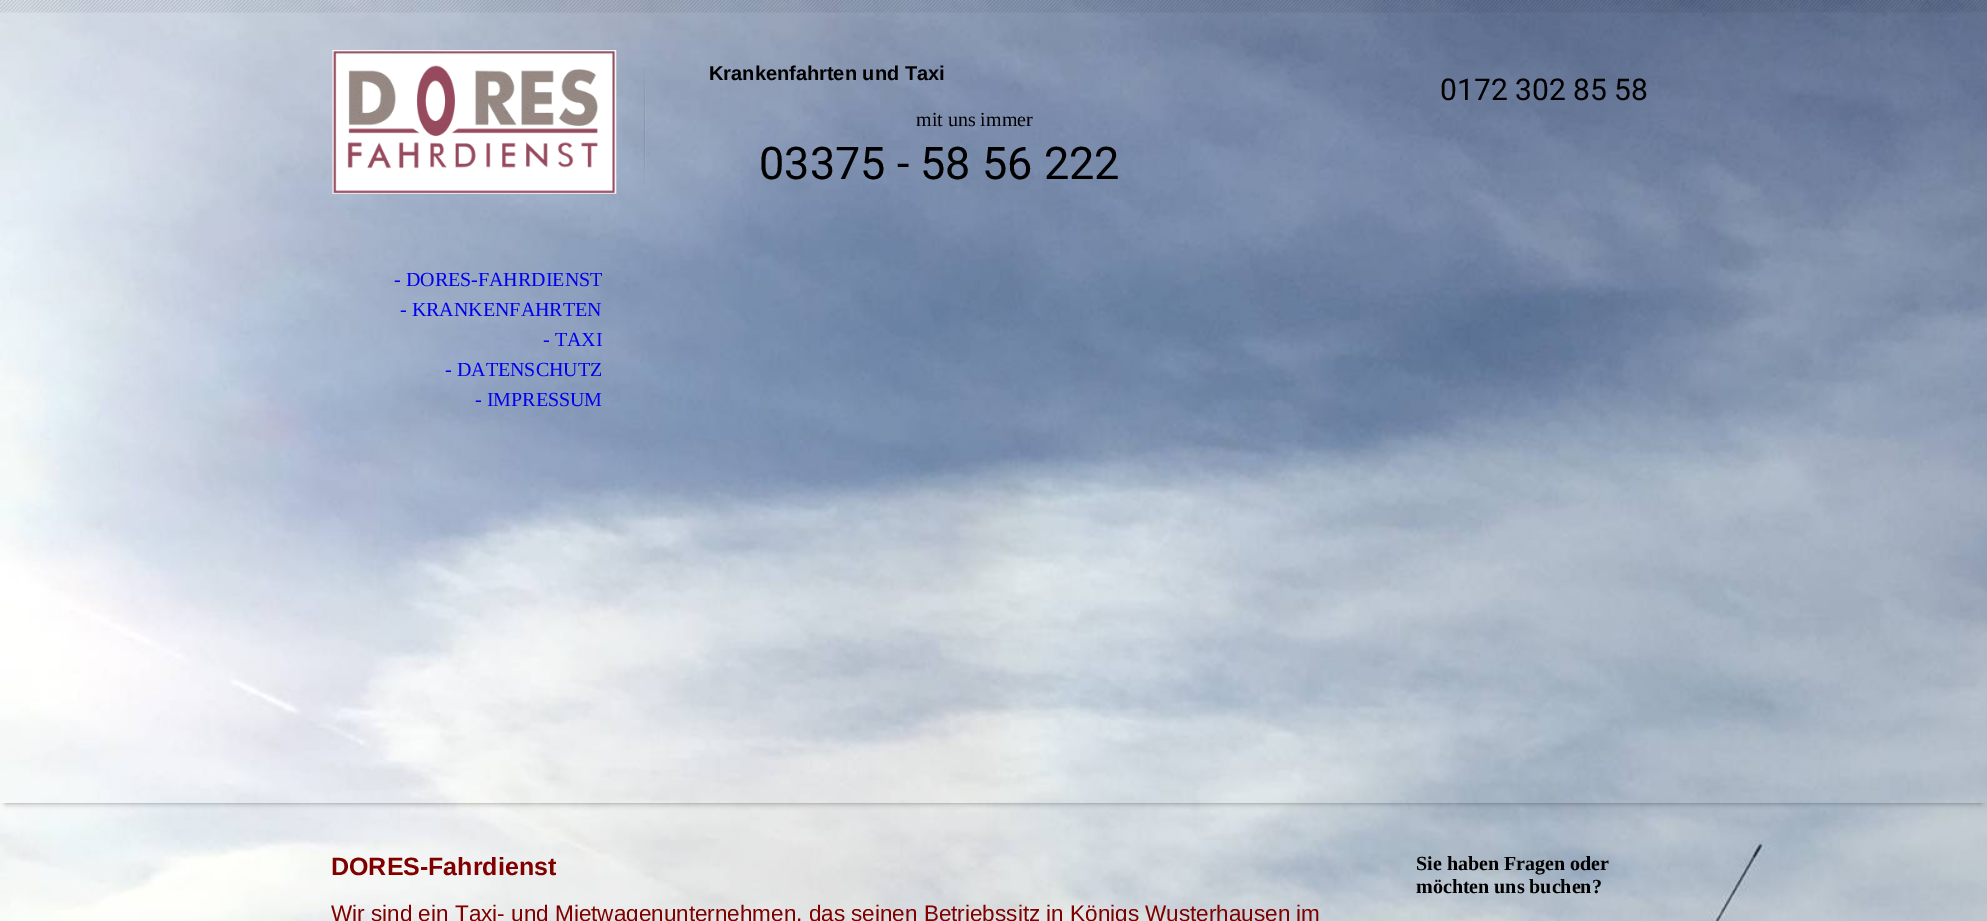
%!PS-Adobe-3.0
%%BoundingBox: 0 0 1987 921
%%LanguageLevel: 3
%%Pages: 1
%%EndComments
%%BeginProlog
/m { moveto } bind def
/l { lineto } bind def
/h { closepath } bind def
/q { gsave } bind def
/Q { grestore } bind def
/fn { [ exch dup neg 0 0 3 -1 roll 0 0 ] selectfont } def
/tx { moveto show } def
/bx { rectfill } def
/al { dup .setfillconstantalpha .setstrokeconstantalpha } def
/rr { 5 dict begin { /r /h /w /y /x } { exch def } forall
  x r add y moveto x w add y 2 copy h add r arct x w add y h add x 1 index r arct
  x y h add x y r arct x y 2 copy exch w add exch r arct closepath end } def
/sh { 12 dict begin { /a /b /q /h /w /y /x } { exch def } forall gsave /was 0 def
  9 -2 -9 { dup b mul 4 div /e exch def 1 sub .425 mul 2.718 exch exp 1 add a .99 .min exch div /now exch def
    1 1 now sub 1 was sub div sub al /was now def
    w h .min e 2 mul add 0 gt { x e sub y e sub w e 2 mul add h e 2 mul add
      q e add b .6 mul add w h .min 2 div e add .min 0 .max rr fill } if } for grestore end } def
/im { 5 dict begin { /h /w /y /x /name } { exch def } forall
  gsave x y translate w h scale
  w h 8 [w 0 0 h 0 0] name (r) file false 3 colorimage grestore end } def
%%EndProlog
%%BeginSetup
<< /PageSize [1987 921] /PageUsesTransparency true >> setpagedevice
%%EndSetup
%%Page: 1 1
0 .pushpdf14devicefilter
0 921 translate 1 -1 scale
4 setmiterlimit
1 setgray
0 0 1987 921 bx
(image0.raw) 0 0 1987 921 im
(image1.raw) 0 0 1987 13 im
(image2.raw) 332 50 285 144 im
(image3.raw) 643 68 3 116 im
/LiberationSans-Bold 20 fn
0 setgray
(Krankenfahrten und Taxi) 709 80 tx
/LiberationSerif-Regular 20 fn
(mit uns immer) 916 126 tx
/Roboto-Regular 45 fn
(03375 - 58 56 222) 759 179 tx
/Roboto-Regular 30 fn
(0172 302 85 58) 1440 100 tx
q
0 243 m 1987 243 l 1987 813 l 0 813 l h 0 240 m 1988 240 l 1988 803 l 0 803 l h eoclip newpath
6 253 1975 550 0 3 0.4 sh
Q
/LiberationSerif-Regular 20 fn
0 0 0.933 setrgbcolor
(- DORES-FAHRDIENST) 394 286 tx
(- KRANKENFAHRTEN) 400 316 tx
(- TAXI) 543 346 tx
(- DATENSCHUTZ) 445 376 tx
(- IMPRESSUM) 475 406 tx
/LiberationSans-Bold 25 fn
0.502 0 0 setrgbcolor
(DORES-Fahrdienst) 331 875 tx
/LiberationSans-Regular 22.5 fn
(Wir sind ein Taxi- und Mietwagenunternehmen, das seinen Betriebssitz in Königs Wusterhausen im) 331 921 tx
/LiberationSerif-Bold 20 fn
0 setgray
(Sie haben Fragen oder) 1416 870 tx
(möchten uns buchen?) 1416 893 tx
.poppdf14devicefilter showpage
%%EOF
